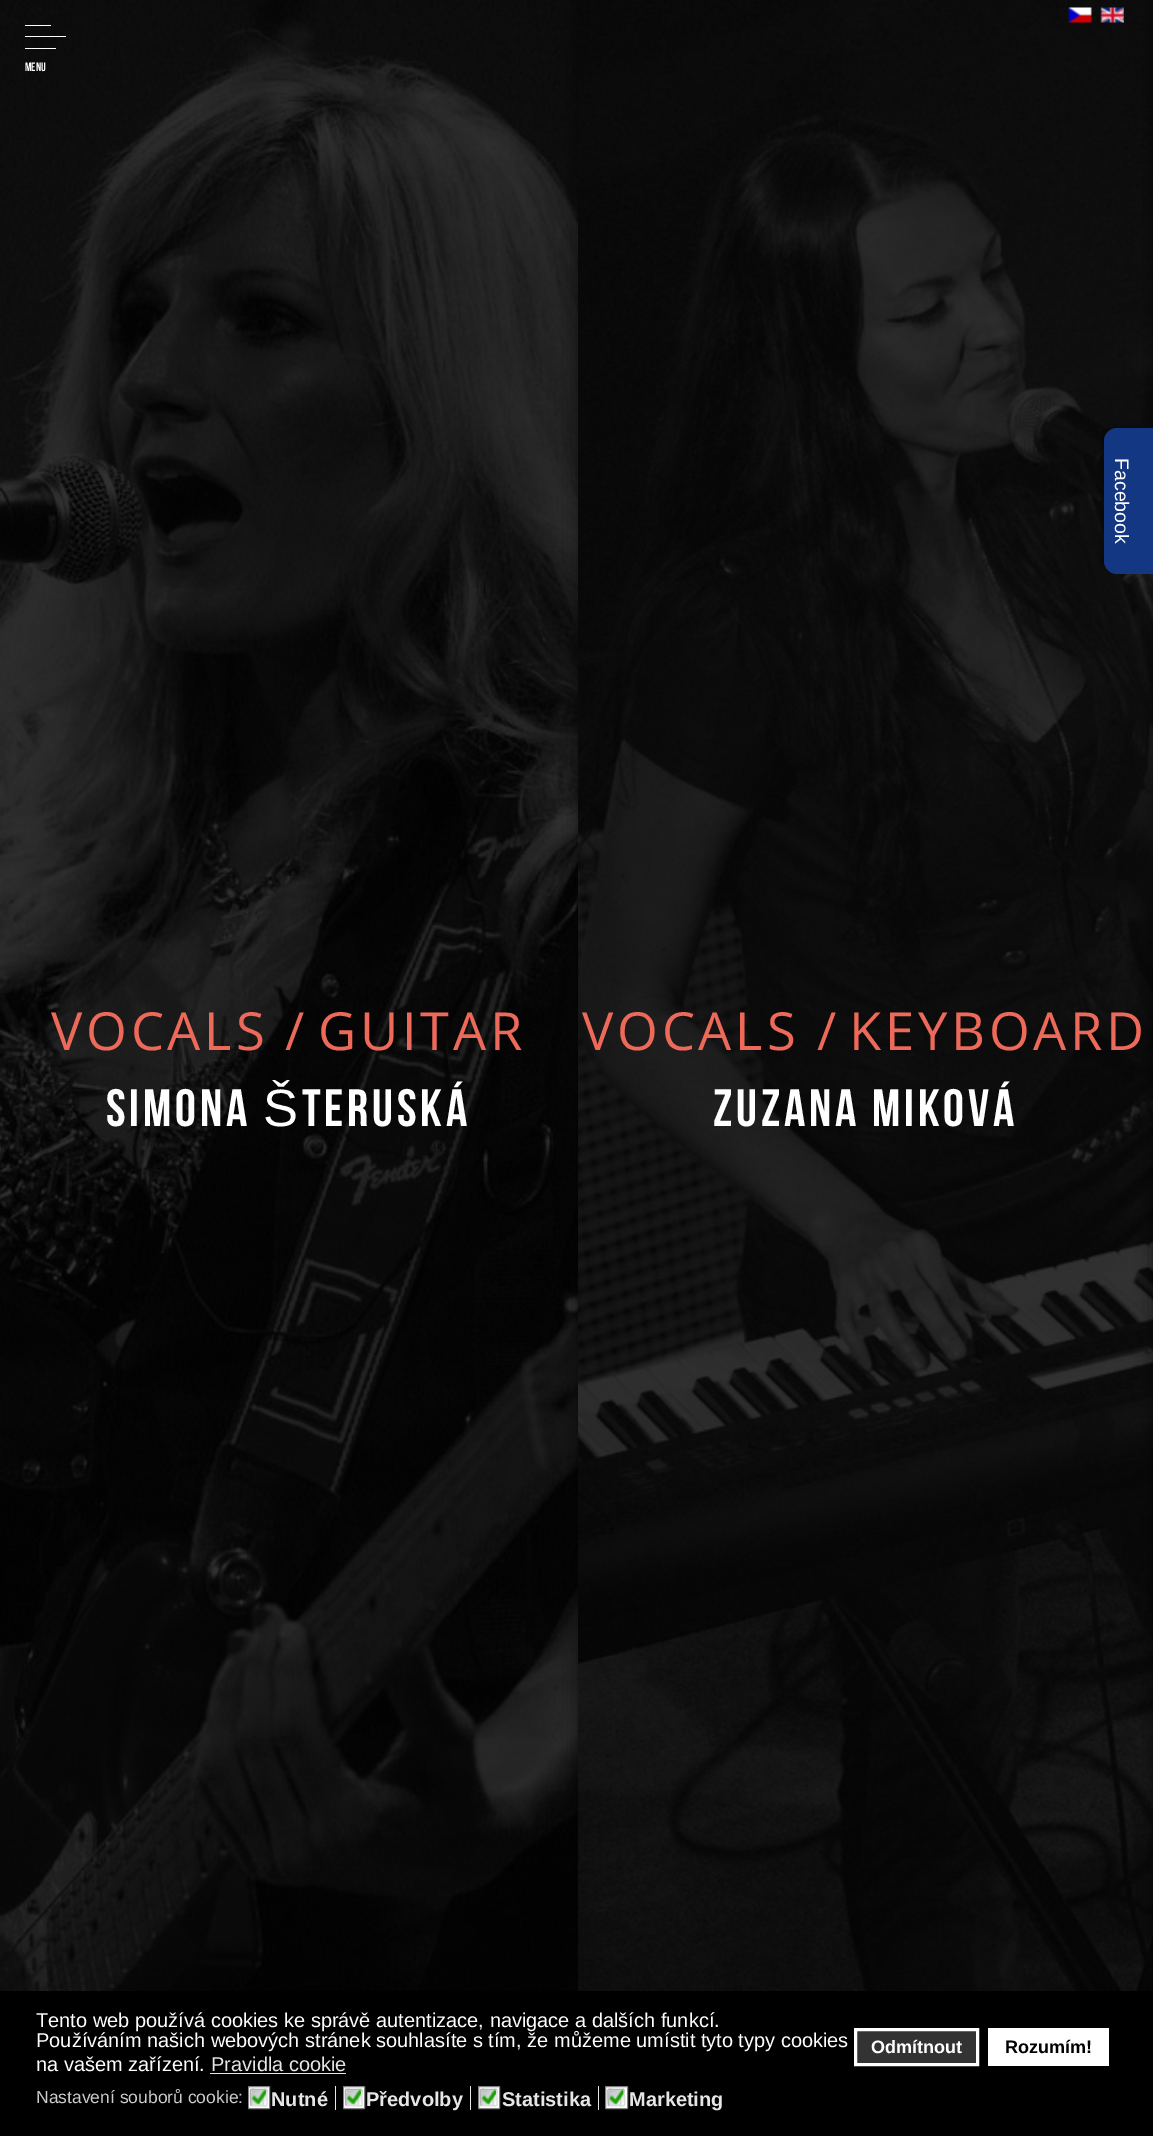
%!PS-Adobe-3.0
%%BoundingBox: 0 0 1153 2136
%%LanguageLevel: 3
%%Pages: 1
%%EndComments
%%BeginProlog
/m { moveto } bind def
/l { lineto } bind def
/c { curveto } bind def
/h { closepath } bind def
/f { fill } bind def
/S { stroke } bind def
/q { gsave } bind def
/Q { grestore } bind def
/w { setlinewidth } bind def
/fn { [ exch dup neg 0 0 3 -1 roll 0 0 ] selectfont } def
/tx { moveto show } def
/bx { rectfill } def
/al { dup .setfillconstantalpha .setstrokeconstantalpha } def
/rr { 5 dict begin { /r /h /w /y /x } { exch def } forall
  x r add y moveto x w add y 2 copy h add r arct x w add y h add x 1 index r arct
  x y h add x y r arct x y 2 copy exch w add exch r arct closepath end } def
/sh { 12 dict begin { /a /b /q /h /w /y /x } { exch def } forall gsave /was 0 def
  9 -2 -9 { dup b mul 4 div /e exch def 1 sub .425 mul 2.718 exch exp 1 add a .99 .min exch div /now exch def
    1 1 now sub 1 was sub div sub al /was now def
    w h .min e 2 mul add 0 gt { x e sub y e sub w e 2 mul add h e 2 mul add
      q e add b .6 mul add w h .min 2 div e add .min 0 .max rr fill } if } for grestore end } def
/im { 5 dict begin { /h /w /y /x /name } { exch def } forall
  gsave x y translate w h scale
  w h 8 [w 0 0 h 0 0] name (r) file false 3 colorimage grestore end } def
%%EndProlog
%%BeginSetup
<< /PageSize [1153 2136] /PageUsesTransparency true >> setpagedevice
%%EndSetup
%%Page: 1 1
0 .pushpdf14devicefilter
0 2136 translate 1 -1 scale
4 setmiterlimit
1 setgray
0 0 1153 2136 bx
(image2.raw) 0 0 578 1991 im
q
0 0 m 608 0 l 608 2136 l 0 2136 l h 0 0 m 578 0 l 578 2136 l 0 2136 l h eoclip newpath
0 setgray
0 0 578 2136 0 9.5 0.5 sh
Q
(image3.raw) 578 0 575 1991 im
0.8 al
0 setgray
0 0 578 1991 bx
q
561 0 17 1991 rectclip
1 al
578 0 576 2136 0 9.5 0.5 sh
Q
1 al
(image0.raw) 1068 7 24 16 im
(image1.raw) 1100 7 24 16 im
1 setgray
25 25 26 1 bx
25 36 41 1 bx
25 48 31 1 bx
/BebasNeue-Bold 12 fn
(MENU) 25 71 tx
0 setgray
1100 426 50 147 13 2 0.25 sh
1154 0 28 2136 0 9.5 0.5 sh
0.075 0.216 0.514 setrgbcolor
1117 428 m 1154 428 l 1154 574 l 1117 574 l 1110 574 1104 568 1104 561 c 1104 441 l 1104 434 1110 428 1117 428 c h f
/LiberationSans-Regular 19.5 fn
1 setgray
q 1115 458 translate 90 rotate 0 0 m (Facebook) show Q
/OpenSans-Regular 52.5 fn
0.929 0.416 0.353 setrgbcolor
51 1050 m 3.75 0 (VOCALS) ashow
(/) 285 1050 tx
318 1050 m 3.75 0 (GUITAR) ashow
/BebasNeue-Bold 52.5 fn
1 setgray
106 1126 m 3.75 0 (Simona) ashow
/LiberationSans-Regular 52.5 fn
263 1126 m 3.75 0 (Š) ashow
/BebasNeue-Bold 52.5 fn
302 1126 m 3.75 0 (teruská) ashow
/OpenSans-Regular 52.5 fn
0.929 0.416 0.353 setrgbcolor
582 1050 m 3.75 0 (VOCALS) ashow
(/) 817 1050 tx
849 1050 m 3.75 0 (KEYBOARD) ashow
/BebasNeue-Bold 52.5 fn
1 setgray
713 1126 m 3.75 0 (Zuzana Miková) ashow
0 setgray
0 1991 1153 145 bx
/LiberationSans-Regular 20 fn
1 setgray
(Tento web používá cookies ke správě autentizace, navigace a dalších funkcí.) 36 2027 tx
(Používáním našich webových stránek souhlasíte s tím, že můžeme umístit tyto typy cookies) 36 2047 tx
(na vašem zařízení.) 36 2071 tx
0.902 setgray
(Pravidla cookie) 211 2071 tx
210 2073 136 1 bx
0.2 setgray
855.5 2029.5 m 977.5 2029.5 l 977.5 2064.5 l 855.5 2064.5 l h q f Q
1 setgray
3 w
S
/LiberationSans-Bold 18 fn
(Odmítnout) 871 2053 tx
988 2028 121 38 bx
0 setgray
(Rozumím!) 1005 2053 tx
/LiberationSans-Regular 17.5 fn
0.8 setgray
(Nastavení souborů cookie:) 36 2103 tx
1 setgray
248.5 2086.5 21 22 0.5 rr q f Q
0.502 setgray
1 w
S
(image4.raw) 249 2088 19 19 im
0.863 0.867 0.871 setrgbcolor
1.2 w
266.5 2089.5 m 267 2097.5 l 267 2108 269 2105.5 259 2105.5 c 251 2105.5 l S
0.702 setgray
251 2105.5 m 250.5 2097.5 l 250.5 2087 248.5 2089.5 259 2089.5 c 266.5 2089.5 l S
0.902 setgray
335 2086 1 24 bx
/LiberationSans-Bold 20 fn
(Nutné) 271 2106 tx
1 setgray
343.5 2086.5 21 22 0.5 rr q f Q
0.502 setgray
1 w
S
(image5.raw) 344 2088 19 19 im
0.863 0.867 0.871 setrgbcolor
1.2 w
361.5 2089.5 m 362 2097.5 l 362 2108 364 2105.5 354 2105.5 c 346 2105.5 l S
0.702 setgray
346 2105.5 m 345.5 2097.5 l 345.5 2087 343.5 2089.5 354 2089.5 c 361.5 2089.5 l S
0.902 setgray
470 2086 1 24 bx
(Předvolby) 366 2106 tx
1 setgray
478.5 2086.5 21 22 0.5 rr q f Q
0.502 setgray
1 w
S
(image6.raw) 480 2088 18 19 im
0.863 0.867 0.871 setrgbcolor
1.2 w
496.5 2089.5 m 497 2097.5 l 497 2108 499 2105.5 489 2105.5 c 481 2105.5 l S
0.702 setgray
481 2105.5 m 480.5 2097.5 l 480.5 2087 478.5 2089.5 489 2089.5 c 496.5 2089.5 l S
0.902 setgray
598 2086 1 24 bx
(Statistika) 502 2106 tx
1 setgray
605.5 2086.5 22 22 0.5 rr q f Q
0.502 setgray
1 w
S
(image7.raw) 607 2088 18 19 im
0.863 0.867 0.871 setrgbcolor
1.2 w
624 2089.5 m 624.5 2097.5 l 624.5 2108 626.5 2105.5 616 2105.5 c 608.5 2105.5 l S
0.702 setgray
608.5 2105.5 m 608 2097.5 l 608 2087 606 2089.5 616 2089.5 c 624 2089.5 l S
0.902 setgray
(Marketing) 629 2106 tx
.poppdf14devicefilter showpage
%%EOF
